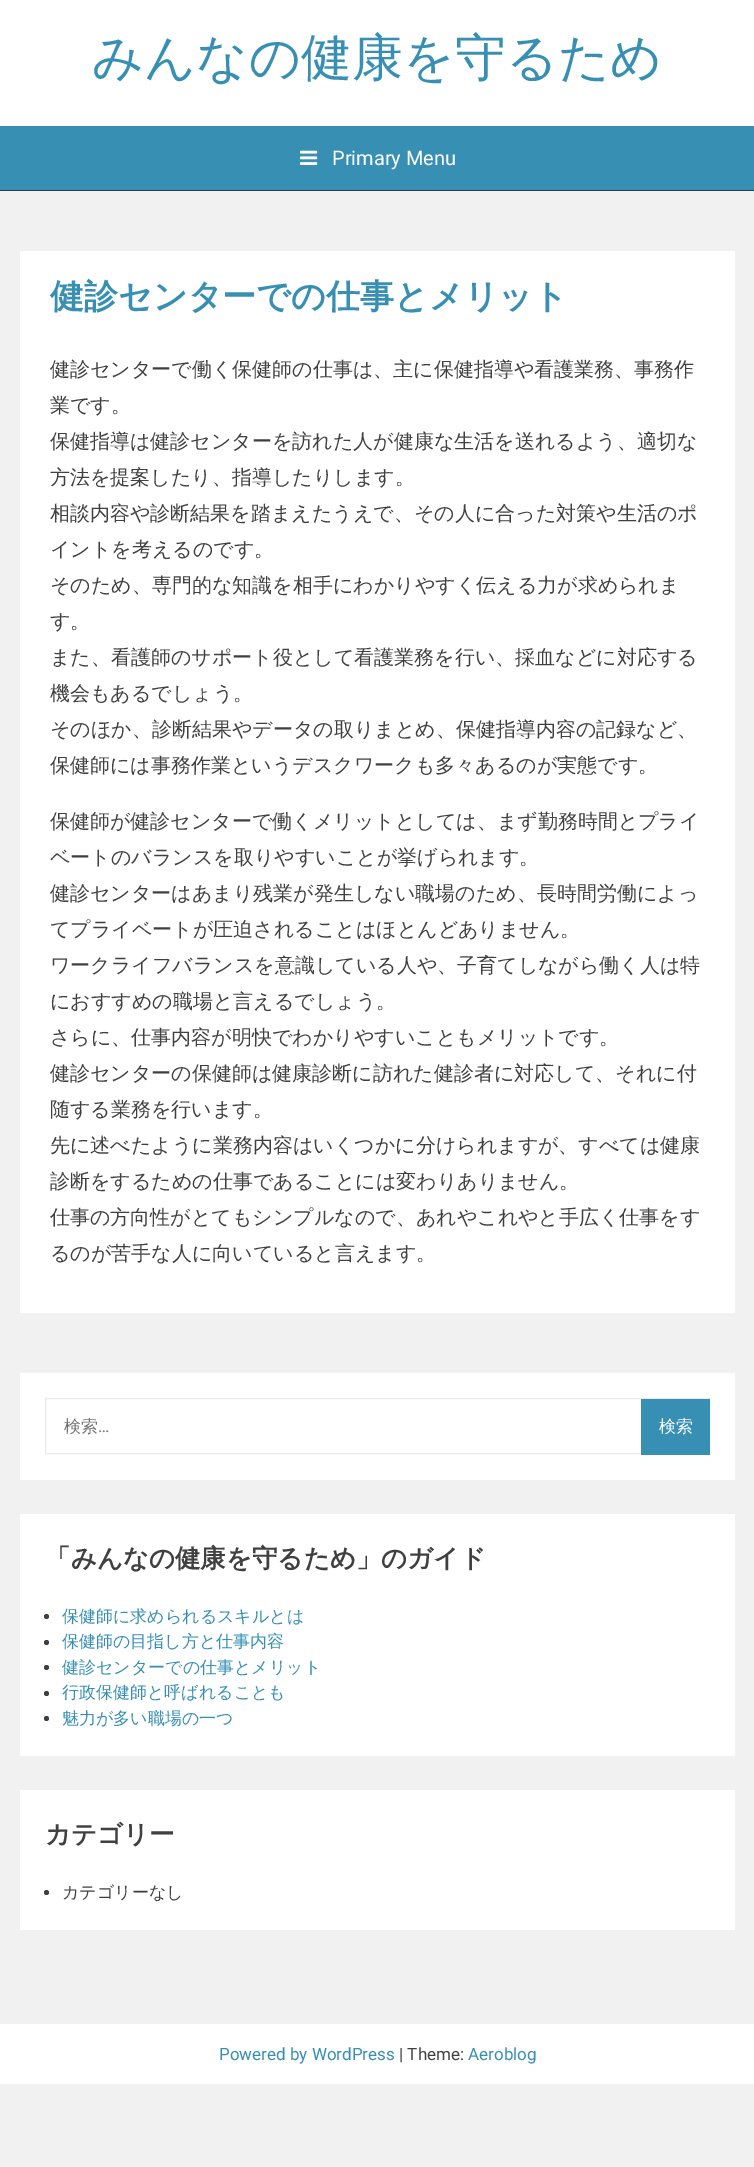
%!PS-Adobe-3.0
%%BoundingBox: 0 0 754 2167
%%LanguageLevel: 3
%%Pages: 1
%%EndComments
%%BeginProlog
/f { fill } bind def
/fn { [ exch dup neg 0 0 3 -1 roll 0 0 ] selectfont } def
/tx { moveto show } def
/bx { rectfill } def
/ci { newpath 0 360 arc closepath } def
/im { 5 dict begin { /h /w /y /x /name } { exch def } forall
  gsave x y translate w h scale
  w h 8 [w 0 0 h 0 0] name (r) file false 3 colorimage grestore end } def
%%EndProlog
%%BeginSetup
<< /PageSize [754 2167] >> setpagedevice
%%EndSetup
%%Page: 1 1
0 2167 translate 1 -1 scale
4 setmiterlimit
0.945 setgray
0 0 754 2167 bx
1 setgray
0 0 754 126 bx
/WenQuanYiZenHei-Medium 51 fn
0.216 0.561 0.706 setrgbcolor
(みんなの健康を守るため) 92 75 tx
0 126 754 64 bx
0.161 0.231 0.298 setrgbcolor
0 190 754 1 bx
(image0.raw) 300 150 18 15 im
/Roboto-Regular 20 fn
1 setgray
(Primary Menu) 332 165 tx
20 251 715 1062 bx
/WenQuanYiZenHei-Bold 34 fn
0.216 0.561 0.706 setrgbcolor
(健診センターでの仕事とメリット) 50 308 tx
/WenQuanYiZenHei-Medium 20 fn
0.251 setgray
(健診センターで働く保健師の仕事は、主に保健指導や看護業務、事務作) 50 376 tx
(業です。) 50 412 tx
(保健指導は健診センターを訪れた人が健康な生活を送れるよう、適切な) 50 448 tx
(方法を提案したり、指導したりします。) 50 484 tx
(相談内容や診断結果を踏まえたうえで、その人に合った対策や生活のポ) 50 520 tx
(イントを考えるのです。) 50 556 tx
(そのため、専門的な知識を相手にわかりやすく伝える力が求められま) 50 592 tx
(す。) 50 628 tx
(また、看護師のサポート役として看護業務を行い、採血などに対応する) 50 664 tx
(機会もあるでしょう。) 50 700 tx
(そのほか、診断結果やデータの取りまとめ、保健指導内容の記録など、) 50 736 tx
(保健師には事務作業というデスクワークも多々あるのが実態です。) 50 772 tx
(保健師が健診センターで働くメリットとしては、まず勤務時間とプライ) 50 828 tx
(ベートのバランスを取りやすいことが挙げられます。) 50 864 tx
(健診センターはあまり残業が発生しない職場のため、長時間労働によっ) 50 900 tx
(てプライベートが圧迫されることはほとんどありません。) 50 936 tx
(ワークライフバランスを意識している人や、子育てしながら働く人は特) 50 972 tx
(におすすめの職場と言えるでしょう。) 50 1008 tx
(さらに、仕事内容が明快でわかりやすいこともメリットです。) 50 1044 tx
(健診センターの保健師は健康診断に訪れた健診者に対応して、それに付) 50 1080 tx
(随する業務を行います。) 50 1116 tx
(先に述べたように業務内容はいくつかに分けられますが、すべては健康) 50 1152 tx
(診断をするための仕事であることには変わりありません。) 50 1188 tx
(仕事の方向性がとてもシンプルなので、あれやこれやと手広く仕事をす) 50 1224 tx
(るのが苦手な人に向いていると言えます。) 50 1260 tx
1 setgray
20 1373 715 107 bx
0.918 setgray
45.5 1398.5 664 55 rectstroke
/WenQuanYiZenHei-Medium 17 fn
0.459 setgray
(検索) 64 1432 tx
/Roboto-Regular 17 fn
(…) 98 1432 tx
0.216 0.561 0.706 setrgbcolor
641 1399 69 56 bx
/WenQuanYiZenHei-Medium 17 fn
1 setgray
(検索) 659 1432 tx
20 1514 715 242 bx
/WenQuanYiZenHei-Bold 25.5 fn
0.251 setgray
(「みんなの健康を守るため」のガイド) 45 1567 tx
46.5 1616.5 2.5 ci f
/WenQuanYiZenHei-Medium 17 fn
0.216 0.561 0.706 setrgbcolor
(保健師に求められるスキルとは) 62 1622 tx
0.251 setgray
46.5 1642.5 2.5 ci f
0.216 0.561 0.706 setrgbcolor
(保健師の目指し方と仕事内容) 62 1647 tx
0.251 setgray
46.5 1667.5 2.5 ci f
0.216 0.561 0.706 setrgbcolor
(健診センターでの仕事とメリット) 62 1673 tx
0.251 setgray
46.5 1693.5 2.5 ci f
0.216 0.561 0.706 setrgbcolor
(行政保健師と呼ばれることも) 62 1698 tx
0.251 setgray
46.5 1718.5 2.5 ci f
0.216 0.561 0.706 setrgbcolor
(魅力が多い職場の一つ) 62 1724 tx
1 setgray
20 1790 715 140 bx
/WenQuanYiZenHei-Bold 25.5 fn
0.251 setgray
(カテゴリー) 45 1843 tx
46.5 1892.5 2.5 ci f
/WenQuanYiZenHei-Medium 17 fn
(カテゴリーなし) 62 1898 tx
1 setgray
0 2024 754 60 bx
/Roboto-Regular 17 fn
0.216 0.561 0.706 setrgbcolor
(Powered by WordPress) 219 2060 tx
0.251 setgray
(| Theme:) 399 2060 tx
0.216 0.561 0.706 setrgbcolor
(Aeroblog) 468 2060 tx
showpage
%%EOF
